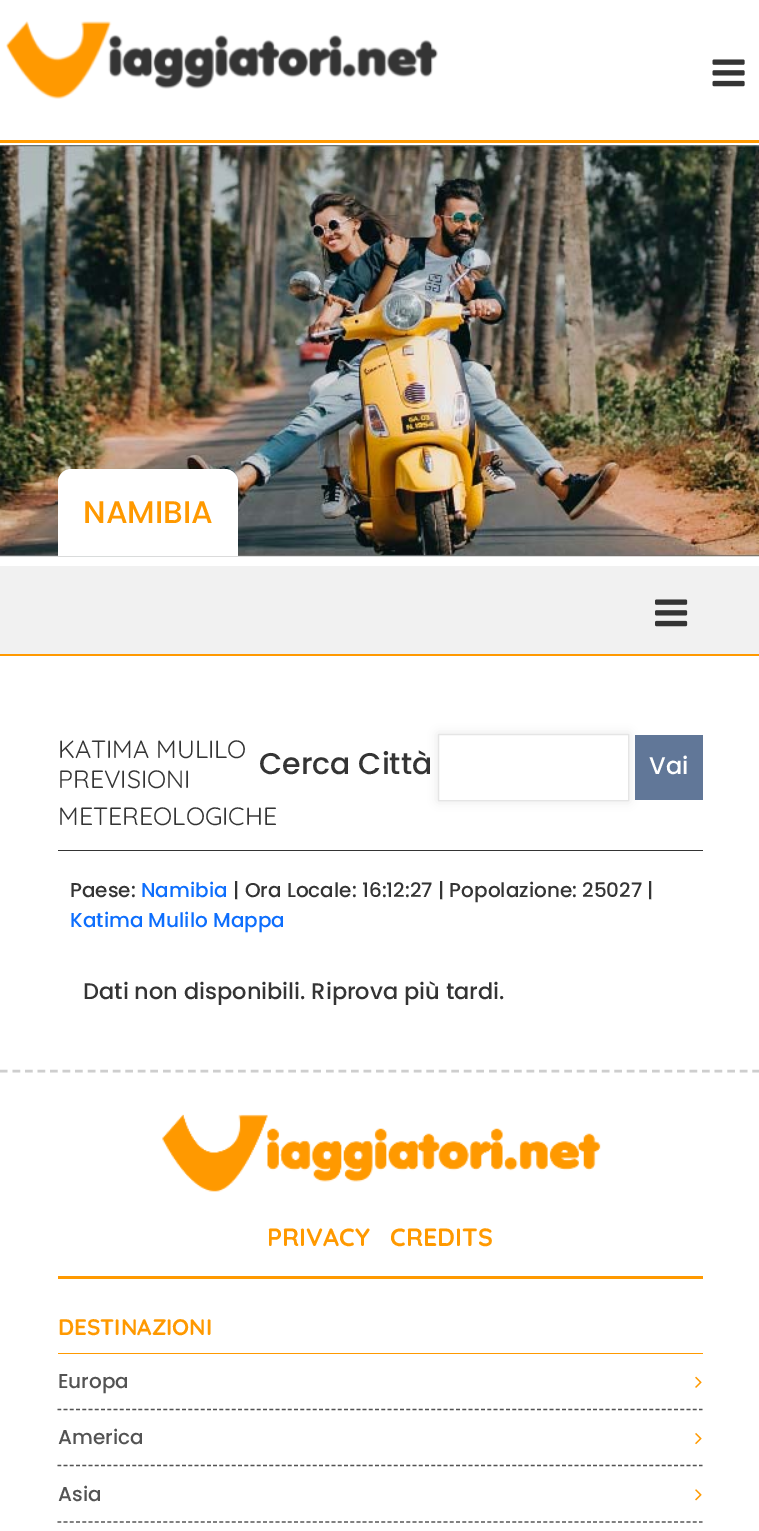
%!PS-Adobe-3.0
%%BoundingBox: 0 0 759 1531
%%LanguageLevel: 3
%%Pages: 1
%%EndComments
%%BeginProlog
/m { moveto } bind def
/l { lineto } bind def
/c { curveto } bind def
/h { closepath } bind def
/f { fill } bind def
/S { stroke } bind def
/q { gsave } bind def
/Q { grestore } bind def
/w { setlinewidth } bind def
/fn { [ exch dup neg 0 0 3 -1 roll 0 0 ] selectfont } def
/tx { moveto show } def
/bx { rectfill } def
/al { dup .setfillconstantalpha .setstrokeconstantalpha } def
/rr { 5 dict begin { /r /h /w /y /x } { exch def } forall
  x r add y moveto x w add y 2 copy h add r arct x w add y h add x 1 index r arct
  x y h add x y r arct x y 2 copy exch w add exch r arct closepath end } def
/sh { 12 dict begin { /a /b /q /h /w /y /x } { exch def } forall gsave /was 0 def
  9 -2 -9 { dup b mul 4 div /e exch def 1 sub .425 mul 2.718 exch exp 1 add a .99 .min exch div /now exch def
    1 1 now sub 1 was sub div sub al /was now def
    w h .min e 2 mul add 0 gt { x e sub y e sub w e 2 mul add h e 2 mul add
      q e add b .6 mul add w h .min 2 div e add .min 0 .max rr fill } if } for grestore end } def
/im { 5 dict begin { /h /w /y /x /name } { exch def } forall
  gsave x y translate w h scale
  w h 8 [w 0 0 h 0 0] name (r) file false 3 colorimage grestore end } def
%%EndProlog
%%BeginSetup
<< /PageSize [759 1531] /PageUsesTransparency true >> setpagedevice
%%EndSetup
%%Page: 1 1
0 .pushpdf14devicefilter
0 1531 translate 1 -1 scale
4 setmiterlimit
1 setgray
0 0 759 1531 bx
1 0.6 0 setrgbcolor
0 140 759 3 bx
(image0.raw) 6 21 432 78 im
(image1.raw) 712 59 33 28 im
(image2.raw) 0 145 759 412 im
1 setgray
71 469 m 225 469 l 232 469 238 475 238 482 c 238 556 l 58 556 l 58 482 l 58 475 64 469 71 469 c h f
/Poppins-Medium 31.25 fn
1 0.6 0 setrgbcolor
(NAMIBIA) 83 523 tx
0.945 setgray
0 566 759 88 bx
1 0.6 0 setrgbcolor
0 654 759 2 bx
(image3.raw) 655 599 33 28 im
0.204 setgray
58 850 645 1 bx
/Quicksand-Regular 25 fn
(KATIMA MULILO) 58 758 tx
(PREVISIONI) 58 788 tx
(METEREOLOGICHE) 58 825 tx
/Poppins-Medium 20 fn
(Paese:) 70 897 tx
0.051 0.431 0.992 setrgbcolor
(Namibia) 141 897 tx
0.204 setgray
(| Ora Locale: 16:12:27 | Popolazione: 25027 |) 233 897 tx
0.051 0.431 0.992 setrgbcolor
(Katima Mulilo Mappa) 70 927 tx
/Poppins-Medium 22.5 fn
0.204 setgray
(Dati non disponibili. Riprova più tardi.) 83 999 tx
/Poppins-Medium 30 fn
(Cerca Città) 259 774 tx
0 setgray
438 734 191 67 0 5 0.1 sh
1 setgray
438.5 734.5 m 628.5 734.5 l 628.5 800.5 l 438.5 800.5 l h q f Q
0.898 setgray
S
0.38 0.467 0.596 setrgbcolor
635 735 68 65 bx
/Poppins-Medium 24 fn
1 setgray
(Vai) 649 774 tx
0.808 setgray
2.5 w
[7.5 5.04] 0 setdash
0 1071 m 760 1071 l S
1 0.6 0 setrgbcolor
58 1276 645 3 bx
(image4.raw) 162 1114 439 78 im
/Quicksand-Bold 25 fn
(PRIVACY) 267 1246 tx
(CREDITS) 390 1246 tx
58 1353 645 1 bx
/Quicksand-Bold 22.5 fn
(DESTINAZIONI) 58 1335 tx
0.325 setgray
1.2 w
[3.75 2.48] 0 setdash
57.5 1409.5 m 702.5 1409.5 l S
/Poppins-Medium 20 fn
(Europa) 58 1388 tx
(image5.raw) 695 1376 7 12 im
57.5 1465.5 m 702.5 1465.5 l S
(America) 58 1444 tx
(image6.raw) 695 1433 7 12 im
57.5 1522 m 702.5 1522 l S
(Asia) 58 1501 tx
(image7.raw) 695 1489 7 12 im
.poppdf14devicefilter showpage
%%EOF
